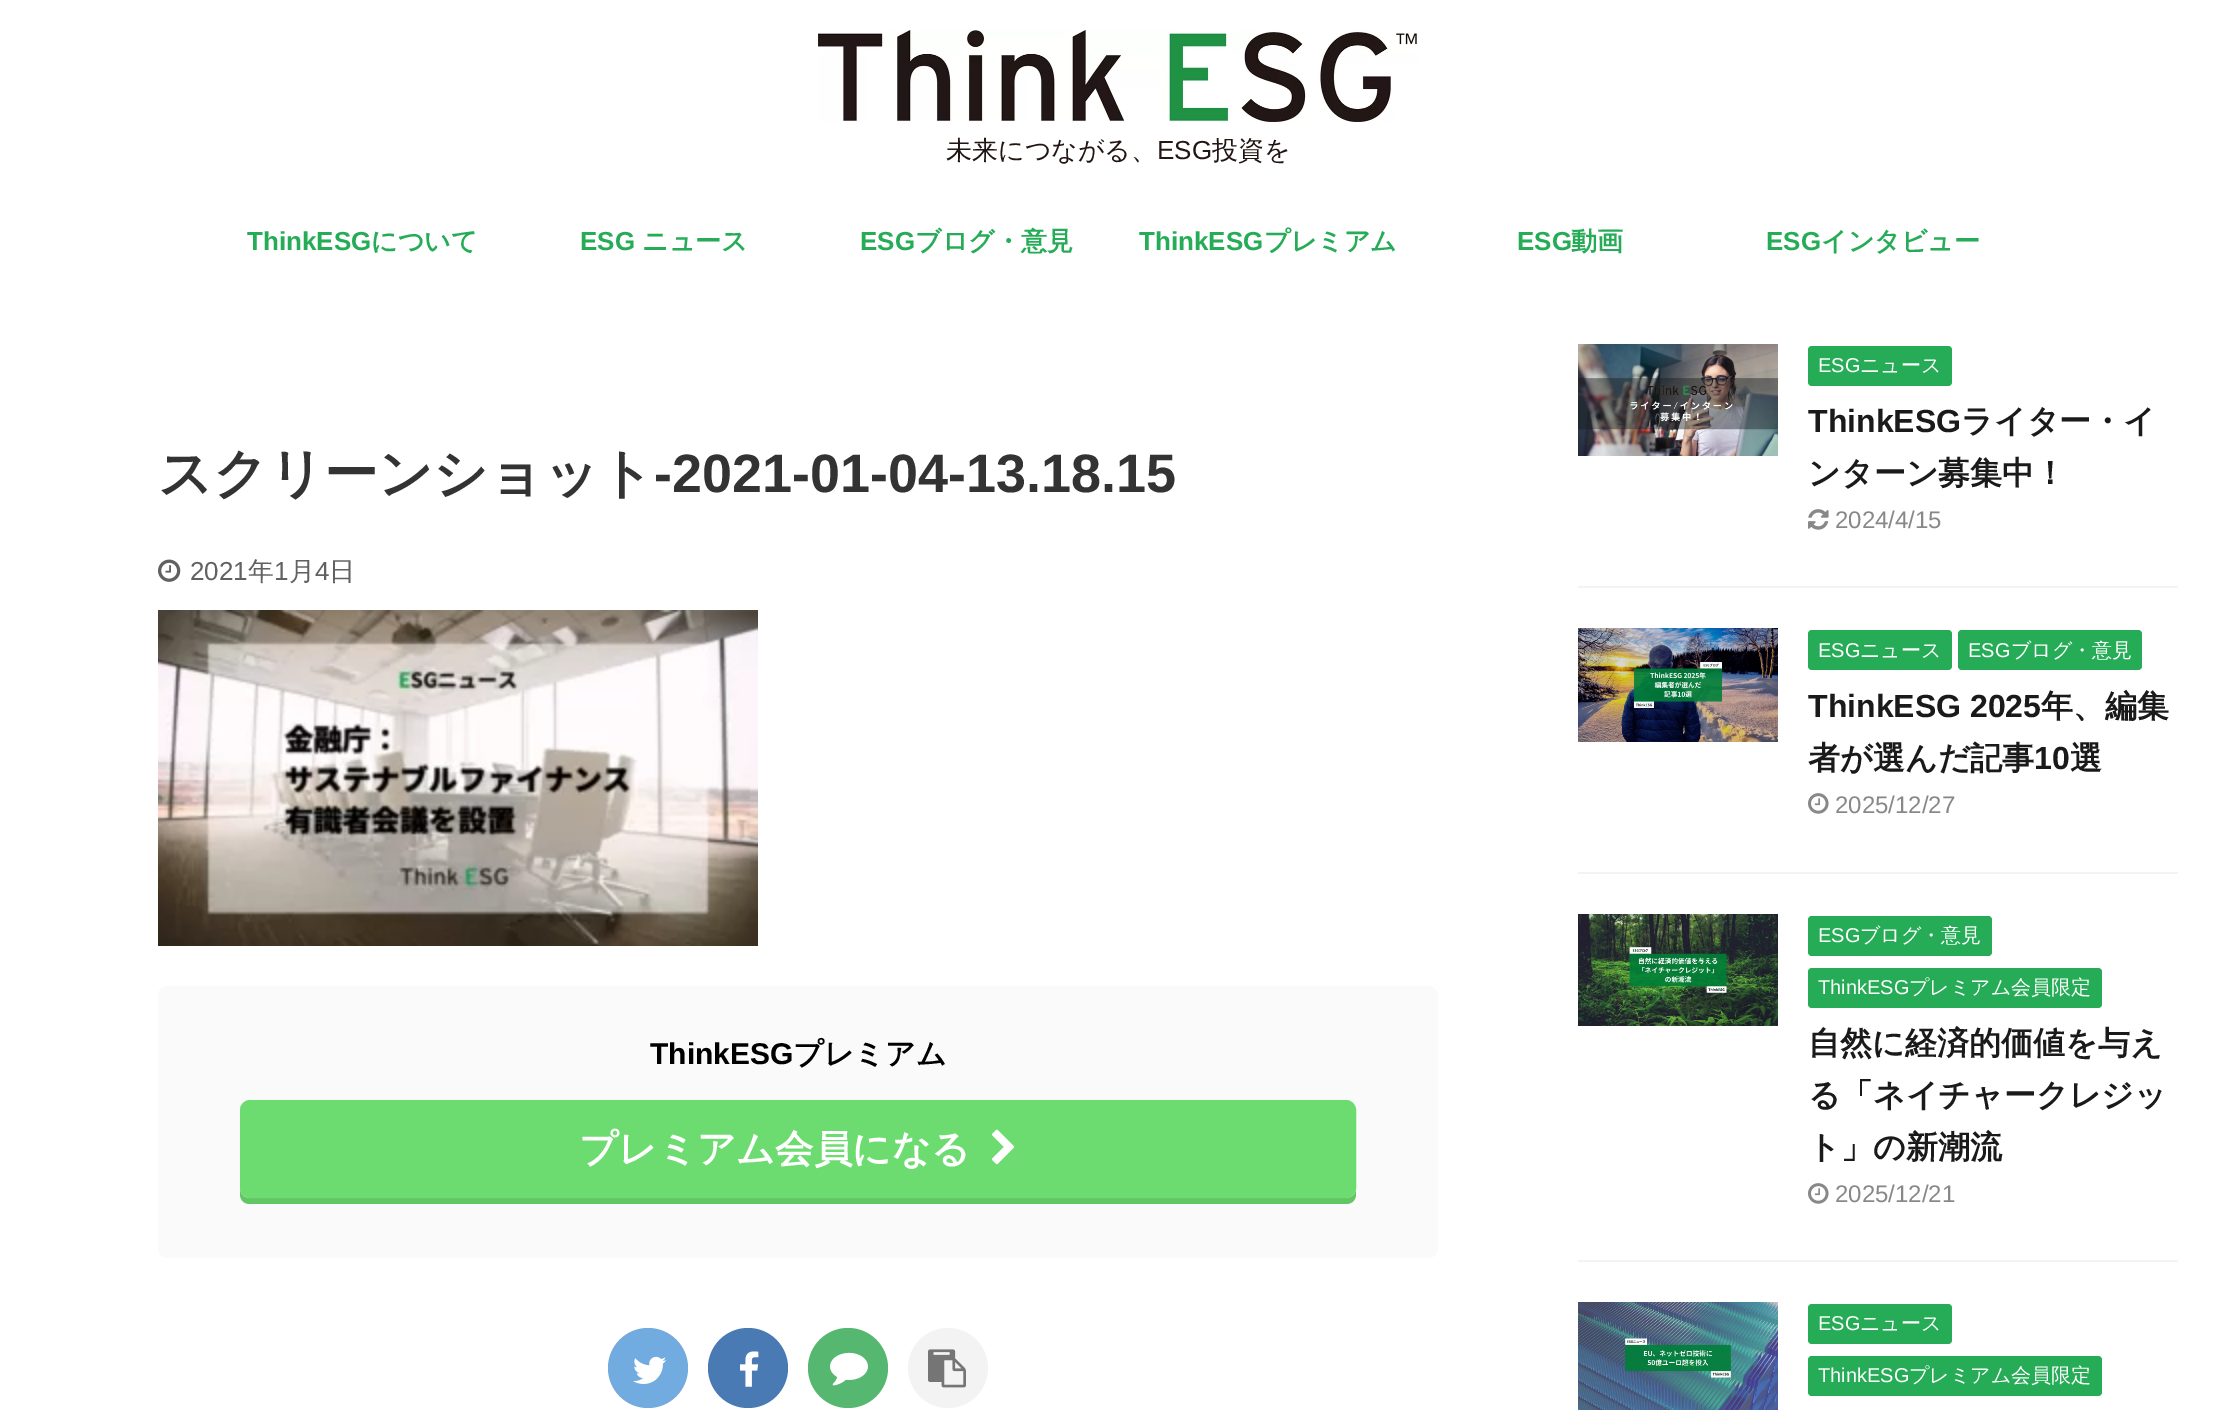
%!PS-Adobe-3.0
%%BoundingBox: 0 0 2236 1410
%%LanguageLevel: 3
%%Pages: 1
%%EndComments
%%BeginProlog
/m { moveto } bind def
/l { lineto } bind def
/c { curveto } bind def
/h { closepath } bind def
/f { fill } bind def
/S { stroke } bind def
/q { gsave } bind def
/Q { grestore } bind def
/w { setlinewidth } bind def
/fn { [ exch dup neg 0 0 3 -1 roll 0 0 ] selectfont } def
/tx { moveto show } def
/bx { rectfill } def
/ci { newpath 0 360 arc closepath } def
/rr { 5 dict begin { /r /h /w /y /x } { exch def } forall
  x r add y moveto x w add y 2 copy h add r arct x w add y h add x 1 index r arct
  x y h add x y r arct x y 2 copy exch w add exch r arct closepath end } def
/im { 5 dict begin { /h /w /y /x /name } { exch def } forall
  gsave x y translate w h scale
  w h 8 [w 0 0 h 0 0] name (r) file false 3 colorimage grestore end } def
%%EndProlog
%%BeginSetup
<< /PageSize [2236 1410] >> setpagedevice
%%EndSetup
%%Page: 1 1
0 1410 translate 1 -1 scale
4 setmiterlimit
1 setgray
0 0 2236 1410 bx
(image0.raw) 818 30 600 92 im
/WenQuanYiZenHei-Medium 26 fn
0.133 0.086 0.075 setrgbcolor
(未来につながる、) 946 159 tx
/LiberationSans-Regular 26 fn
(ESG) 1157 159 tx
/WenQuanYiZenHei-Medium 26 fn
(投資を) 1212 159 tx
/LiberationSans-Bold 26 fn
0.149 0.675 0.341 setrgbcolor
(ThinkESG) 247 250 tx
/WenQuanYiZenHei-Bold 26 fn
(について) 371 250 tx
/LiberationSans-Bold 26 fn
(ESG) 580 250 tx
/WenQuanYiZenHei-Bold 26 fn
(ニュース) 642 250 tx
/LiberationSans-Bold 26 fn
(ESG) 860 250 tx
/WenQuanYiZenHei-Bold 26 fn
(ブログ・意見) 915 250 tx
/LiberationSans-Bold 26 fn
(ThinkESG) 1139 250 tx
/WenQuanYiZenHei-Bold 26 fn
(プレミアム) 1264 250 tx
/LiberationSans-Bold 26 fn
(ESG) 1517 250 tx
/WenQuanYiZenHei-Bold 26 fn
(動画) 1571 250 tx
/LiberationSans-Bold 26 fn
(ESG) 1766 250 tx
/WenQuanYiZenHei-Bold 26 fn
(インタビュー) 1821 250 tx
/WenQuanYiZenHei-Bold 54 fn
0.2 setgray
(スクリーンショット) 158 492 tx
/LiberationSans-Bold 54 fn
(-2021-01-04-13.18.15) 654 492 tx
(image1.raw) 158 559 23 23 im
/LiberationSans-Regular 26 fn
0.38 setgray
(2021) 190 580 tx
/WenQuanYiZenHei-Medium 26 fn
(年) 248 580 tx
/LiberationSans-Regular 26 fn
(1) 274 580 tx
/WenQuanYiZenHei-Medium 26 fn
(月) 289 580 tx
/LiberationSans-Regular 26 fn
(4) 315 580 tx
/WenQuanYiZenHei-Medium 26 fn
(日) 329 580 tx
(image2.raw) 158 610 600 336 im
0.98 setgray
158 986 1280 272 10 rr f
/LiberationSans-Bold 30 fn
0 setgray
(ThinkESG) 650 1064 tx
/WenQuanYiZenHei-Bold 30 fn
(プレミアム) 793 1064 tx
0.384 0.776 0.392 setrgbcolor
240 1188 m 240 1194 l 240 1200 244 1204 250 1204 c 1346 1204 l 1352 1204 1356 1200 1356 1194 c 1356 1188 l 1356 1194 1352 1198 1346 1198 c 250 1198 l 244 1198 240 1194 240 1188 c h f
0.427 0.863 0.439 setrgbcolor
241 1101 1114 96 9 rr q f Q
2 w
S
/WenQuanYiZenHei-Bold 38.4 fn
1 setgray
(プレミアム会員になる) 579 1162 tx
(image3.raw) 991 1129 24 36 im
0.443 0.671 0.875 setrgbcolor
648 1368 40 ci f
(image4.raw) 633 1356 34 28 im
0.29 0.478 0.706 setrgbcolor
748 1368 40 ci f
(image5.raw) 740 1351 19 36 im
0.337 0.722 0.439 setrgbcolor
848 1368 40 ci f
(image6.raw) 830 1352 38 34 im
0.953 setgray
948 1368 40 ci f
(image7.raw) 928 1349 38 39 im
1578 586 600 2 bx
(image8.raw) 1578 344 200 112 im
0.149 0.675 0.341 setrgbcolor
1808 346 144 40 4 rr f
/LiberationSans-Regular 20 fn
1 setgray
(ESG) 1818 372 tx
/WenQuanYiZenHei-Medium 20 fn
(ニュース) 1860 372 tx
/LiberationSans-Bold 32 fn
0.102 setgray
(ThinkESG) 1808 432 tx
/WenQuanYiZenHei-Bold 32 fn
(ライター・イ) 1961 432 tx
(ンターン募集中！) 1808 484 tx
(image9.raw) 1808 509 21 21 im
/LiberationSans-Regular 24 fn
0.533 setgray
(2024/4/15) 1835 528 tx
0.953 setgray
1578 872 600 2 bx
(image10.raw) 1578 628 200 114 im
0.149 0.675 0.341 setrgbcolor
1808 630 144 40 4 rr f
/LiberationSans-Regular 20 fn
1 setgray
(ESG) 1818 657 tx
/WenQuanYiZenHei-Medium 20 fn
(ニュース) 1860 657 tx
0.149 0.675 0.341 setrgbcolor
1958 630 184 40 4 rr f
/LiberationSans-Regular 20 fn
1 setgray
(ESG) 1968 657 tx
/WenQuanYiZenHei-Medium 20 fn
(ブログ・意見) 2011 657 tx
/LiberationSans-Bold 32 fn
0.102 setgray
(ThinkESG 2025) 1808 717 tx
/WenQuanYiZenHei-Bold 32 fn
(年、編集) 2041 717 tx
(者が選んだ記事) 1808 769 tx
/LiberationSans-Bold 32 fn
(10) 2034 769 tx
/WenQuanYiZenHei-Bold 32 fn
(選) 2070 769 tx
(image11.raw) 1808 793 21 21 im
/LiberationSans-Regular 24 fn
0.533 setgray
(2025/12/27) 1835 813 tx
0.953 setgray
1578 1260 600 2 bx
(image12.raw) 1578 914 200 112 im
0.149 0.675 0.341 setrgbcolor
1808 916 184 40 4 rr f
/LiberationSans-Regular 20 fn
1 setgray
(ESG) 1818 942 tx
/WenQuanYiZenHei-Medium 20 fn
(ブログ・意見) 1860 942 tx
0.149 0.675 0.341 setrgbcolor
1808 968 294 40 4 rr f
/LiberationSans-Regular 20 fn
1 setgray
(ThinkESG) 1818 994 tx
/WenQuanYiZenHei-Medium 20 fn
(プレミアム会員限定) 1909 994 tx
/WenQuanYiZenHei-Bold 32 fn
0.102 setgray
(自然に経済的価値を与え) 1808 1054 tx
(る「ネイチャークレジッ) 1808 1106 tx
(ト」の新潮流) 1808 1158 tx
(image11.raw) 1808 1183 21 21 im
/LiberationSans-Regular 24 fn
0.533 setgray
(2025/12/21) 1835 1202 tx
(image13.raw) 1578 1302 200 108 im
0.149 0.675 0.341 setrgbcolor
1808 1304 144 40 4 rr f
/LiberationSans-Regular 20 fn
1 setgray
(ESG) 1818 1330 tx
/WenQuanYiZenHei-Medium 20 fn
(ニュース) 1860 1330 tx
0.149 0.675 0.341 setrgbcolor
1808 1356 294 40 4 rr f
/LiberationSans-Regular 20 fn
1 setgray
(ThinkESG) 1818 1382 tx
/WenQuanYiZenHei-Medium 20 fn
(プレミアム会員限定) 1909 1382 tx
showpage
%%EOF
